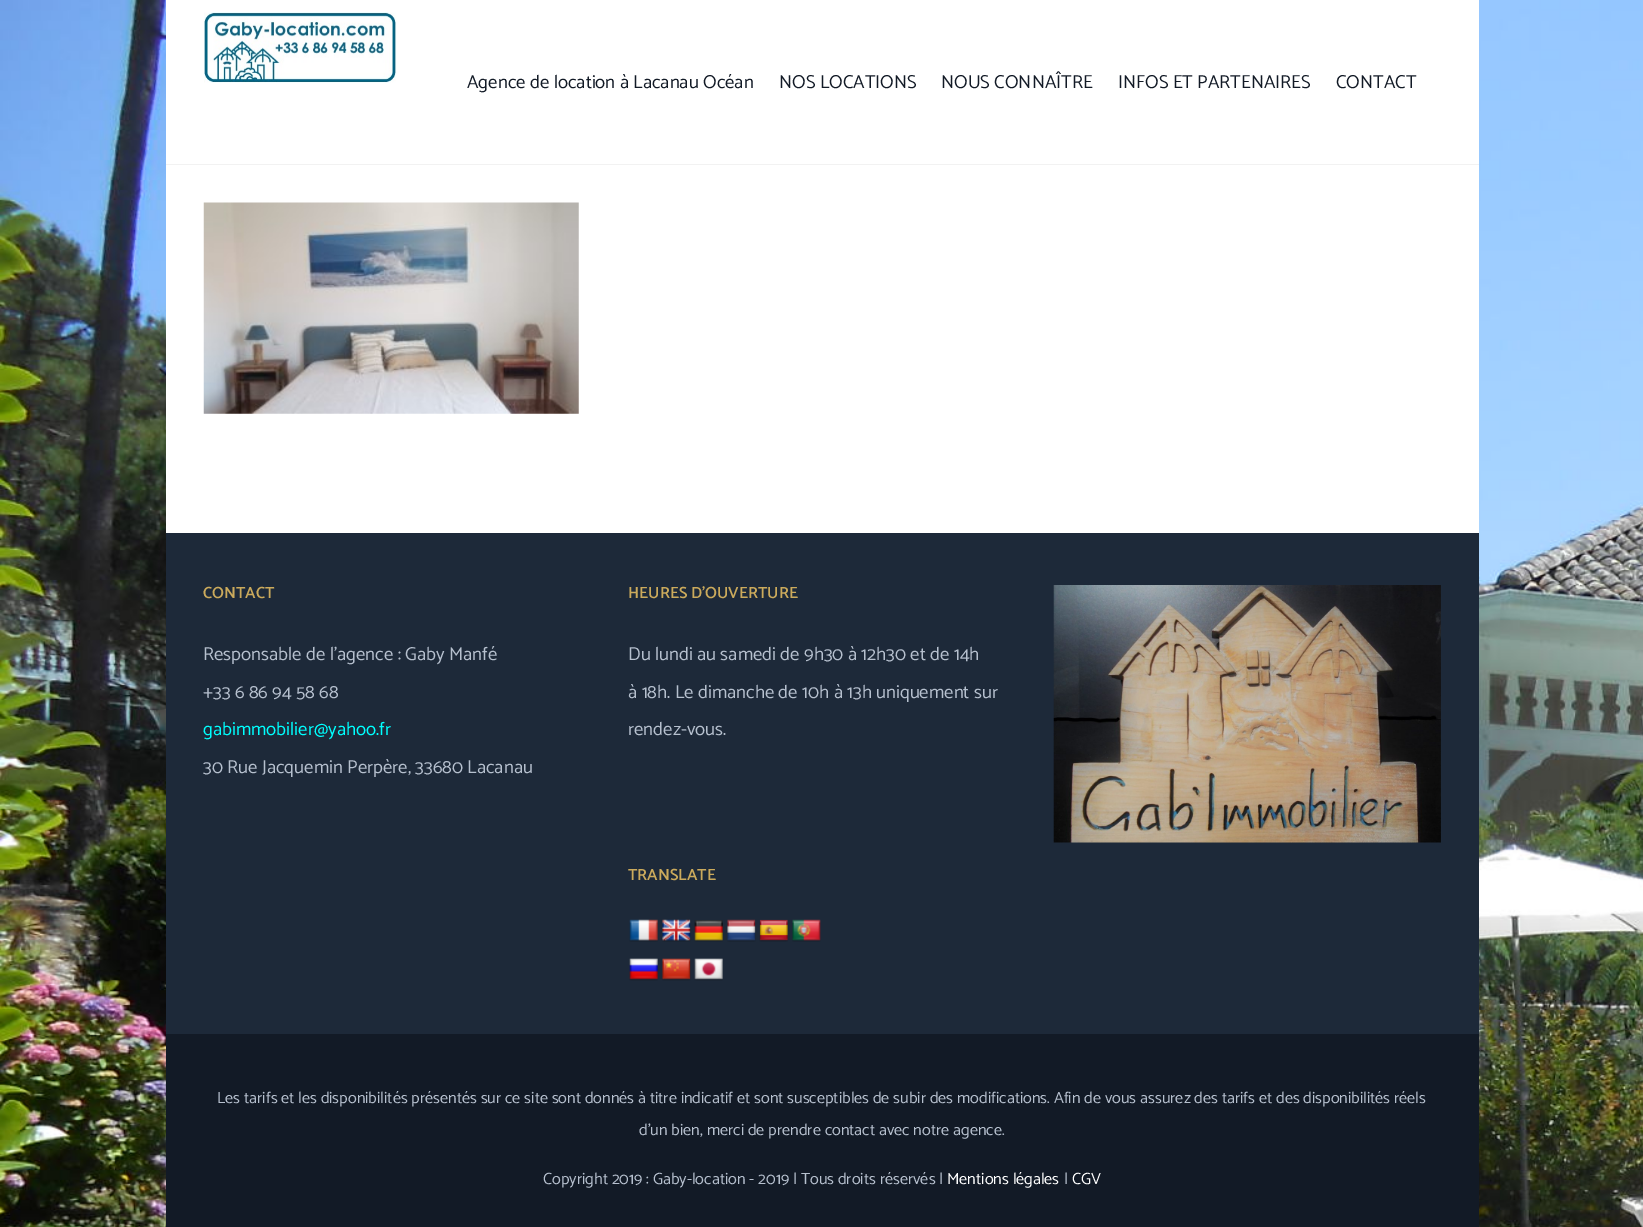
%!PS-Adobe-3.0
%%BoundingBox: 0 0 1643 1227
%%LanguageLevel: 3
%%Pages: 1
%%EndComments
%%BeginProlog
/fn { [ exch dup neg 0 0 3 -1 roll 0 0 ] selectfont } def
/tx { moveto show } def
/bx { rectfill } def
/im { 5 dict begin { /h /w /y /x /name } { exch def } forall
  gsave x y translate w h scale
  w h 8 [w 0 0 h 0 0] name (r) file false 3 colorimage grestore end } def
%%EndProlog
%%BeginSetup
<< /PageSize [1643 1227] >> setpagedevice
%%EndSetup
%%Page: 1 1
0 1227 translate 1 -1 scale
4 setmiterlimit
1 setgray
0 0 1643 1227 bx
(image0.raw) 0 0 1643 1227 im
166 0 1313 164 bx
0.949 setgray
166 164 1313 1 bx
(image1.raw) 204 12 193 71 im
/Catamaran-Regular 18.75 fn
0.071 0.102 0.149 setrgbcolor
(Agence de location à Lacanau Océan) 467 88 tx
(NOS LOCATIONS) 779 88 tx
(NOUS CONNAÎTRE) 941 88 tx
(INFOS ET PARTENAIRES) 1118 88 tx
(CONTACT) 1336 88 tx
1 setgray
166 165 1313 368 bx
(image2.raw) 203 202 376 212 im
0.114 0.161 0.224 setrgbcolor
166 533 1313 501 bx
/Catamaran-SemiBold 16.25 fn
0.796 0.667 0.361 setrgbcolor
(CONTACT) 203 598 tx
/Catamaran-Regular 18.75 fn
0.714 0.753 0.808 setrgbcolor
(Responsable de l’agence : Gaby Manfé) 203 660 tx
(+33 6 86 94 58 68) 203 698 tx
0 1 1 setrgbcolor
(gabimmobilier@yahoo.fr) 203 735 tx
0.714 0.753 0.808 setrgbcolor
(30 Rue Jacquemin Perpère, 33680 Lacanau) 203 773 tx
/Catamaran-SemiBold 16.25 fn
0.796 0.667 0.361 setrgbcolor
(HEURES D’OUVERTURE) 628 598 tx
/Catamaran-Regular 18.75 fn
0.714 0.753 0.808 setrgbcolor
(Du lundi au samedi de 9h30 à 12h30 et de 14h) 628 660 tx
(à 18h. Le dimanche de 10h à 13h uniquement sur) 628 698 tx
(rendez-vous.) 628 735 tx
/Catamaran-SemiBold 16.25 fn
0.796 0.667 0.361 setrgbcolor
(TRANSLATE) 628 880 tx
(image3.raw) 629 919 29 23 im
(image4.raw) 662 919 29 23 im
(image5.raw) 694 920 29 22 im
(image6.raw) 727 919 29 23 im
(image7.raw) 759 919 29 23 im
(image8.raw) 792 919 29 23 im
(image9.raw) 629 958 29 23 im
(image10.raw) 662 958 29 23 im
(image11.raw) 694 958 29 23 im
(image12.raw) 1053 585 388 258 im
0.071 0.102 0.149 setrgbcolor
166 1034 1313 193 bx
/Catamaran-Regular 16.25 fn
0.714 0.753 0.808 setrgbcolor
(Les tarifs et les disponibilités présentés sur ce site sont donnés à titre indicatif et sont susceptibles de subir des modifications. Afin de vous assurez des tarifs et des disponibilités réels) 217 1103 tx
(d'un bien, merci de prendre contact avec notre agence.) 639 1135 tx
(Copyright 2019 : Gaby-location - 2019 | Tous droits réservés |) 543 1184 tx
1 setgray
(Mentions légales) 947 1184 tx
0.714 0.753 0.808 setrgbcolor
(|) 1064 1184 tx
1 setgray
(CGV) 1072 1184 tx
showpage
%%EOF
